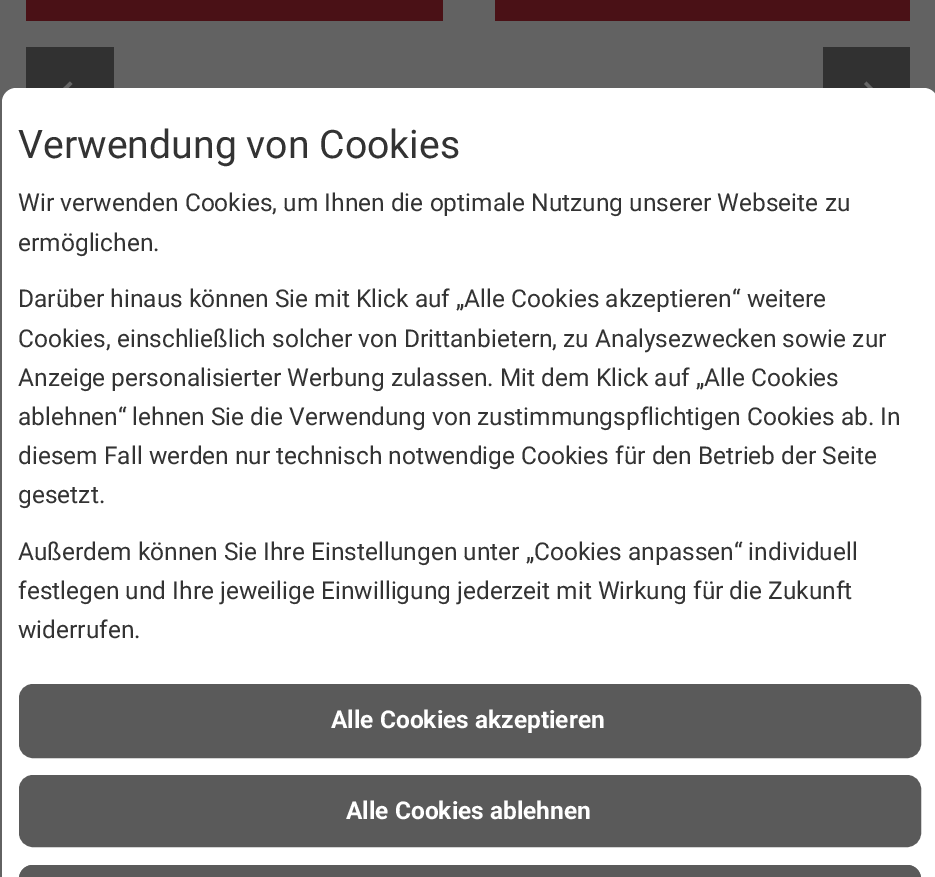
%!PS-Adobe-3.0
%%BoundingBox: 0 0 935 877
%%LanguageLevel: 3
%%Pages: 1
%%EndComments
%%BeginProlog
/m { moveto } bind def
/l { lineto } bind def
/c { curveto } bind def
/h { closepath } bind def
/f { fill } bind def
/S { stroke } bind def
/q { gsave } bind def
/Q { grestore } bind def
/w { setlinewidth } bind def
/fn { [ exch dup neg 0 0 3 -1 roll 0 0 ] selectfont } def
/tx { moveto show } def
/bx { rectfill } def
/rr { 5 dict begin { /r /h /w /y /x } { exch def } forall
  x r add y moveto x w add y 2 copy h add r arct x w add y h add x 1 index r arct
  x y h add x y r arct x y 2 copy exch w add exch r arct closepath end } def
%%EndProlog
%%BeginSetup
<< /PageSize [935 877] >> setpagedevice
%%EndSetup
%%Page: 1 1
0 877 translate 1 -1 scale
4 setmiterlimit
0.384 setgray
0 0 935 877 bx
0.29 0.067 0.086 setrgbcolor
26 0 417 21 bx
495 0 415 21 bx
0.192 setgray
26 47 88 41 bx
0.4 setgray
70 81.5 m 72.5 84 l 62 94 l 59.5 91.5 l h f
0.192 setgray
823 47 87 41 bx
0.4 setgray
866.5 81.5 m 876.5 91.5 l 874 94 l 864 84 l h f
1 setgray
16 88 m 924 88 l 931.5 88 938 94.5 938 102 c 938 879 l 2 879 l 2 102 l 2 94.5 8.5 88 16 88 c h f
/Roboto-Regular 39.25 fn
0.2 setgray
(Verwendung von Cookies) 18 158 tx
/Roboto-Regular 24.5 fn
(Wir verwenden Cookies, um Ihnen die optimale Nutzung unserer Webseite zu) 18 211 tx
(ermöglichen.) 18 251 tx
(Darüber hinaus können Sie mit Klick auf „Alle Cookies akzeptieren“ weitere) 18 307 tx
(Cookies, einschließlich solcher von Drittanbietern, zu Analysezwecken sowie zur) 18 347 tx
(Anzeige personalisierter Werbung zulassen. Mit dem Klick auf „Alle Cookies) 18 386 tx
(ablehnen“ lehnen Sie die Verwendung von zustimmungspflichtigen Cookies ab. In) 18 425 tx
(diesem Fall werden nur technisch notwendige Cookies für den Betrieb der Seite) 18 464 tx
(gesetzt.) 18 503 tx
(Außerdem können Sie Ihre Einstellungen unter „Cookies anpassen“ individuell) 18 560 tx
(festlegen und Ihre jeweilige Einwilligung jederzeit mit Wirkung für die Zukunft) 18 599 tx
(widerrufen.) 18 638 tx
0.353 setgray
20 685 900 72 13 rr q f Q
2 w
S
/Roboto-Bold 24.5 fn
1 setgray
(Alle Cookies akzeptieren) 331 728 tx
0.353 setgray
20 776 900 70 13 rr q f Q
S
1 setgray
(Alle Cookies ablehnen) 346 819 tx
0.353 setgray
33 865 m 907 865 l 914.5 865 921 871.5 921 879 c 19 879 l 19 871.5 25.5 865 33 865 c h f
33 865 m 25 865 19 871 19 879 c 21 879 l 21 872 26 867 33 867 c 907 867 l 914 867 919 872 919 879 c 921 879 l 921 871 915 865 907 865 c h f
showpage
%%EOF
